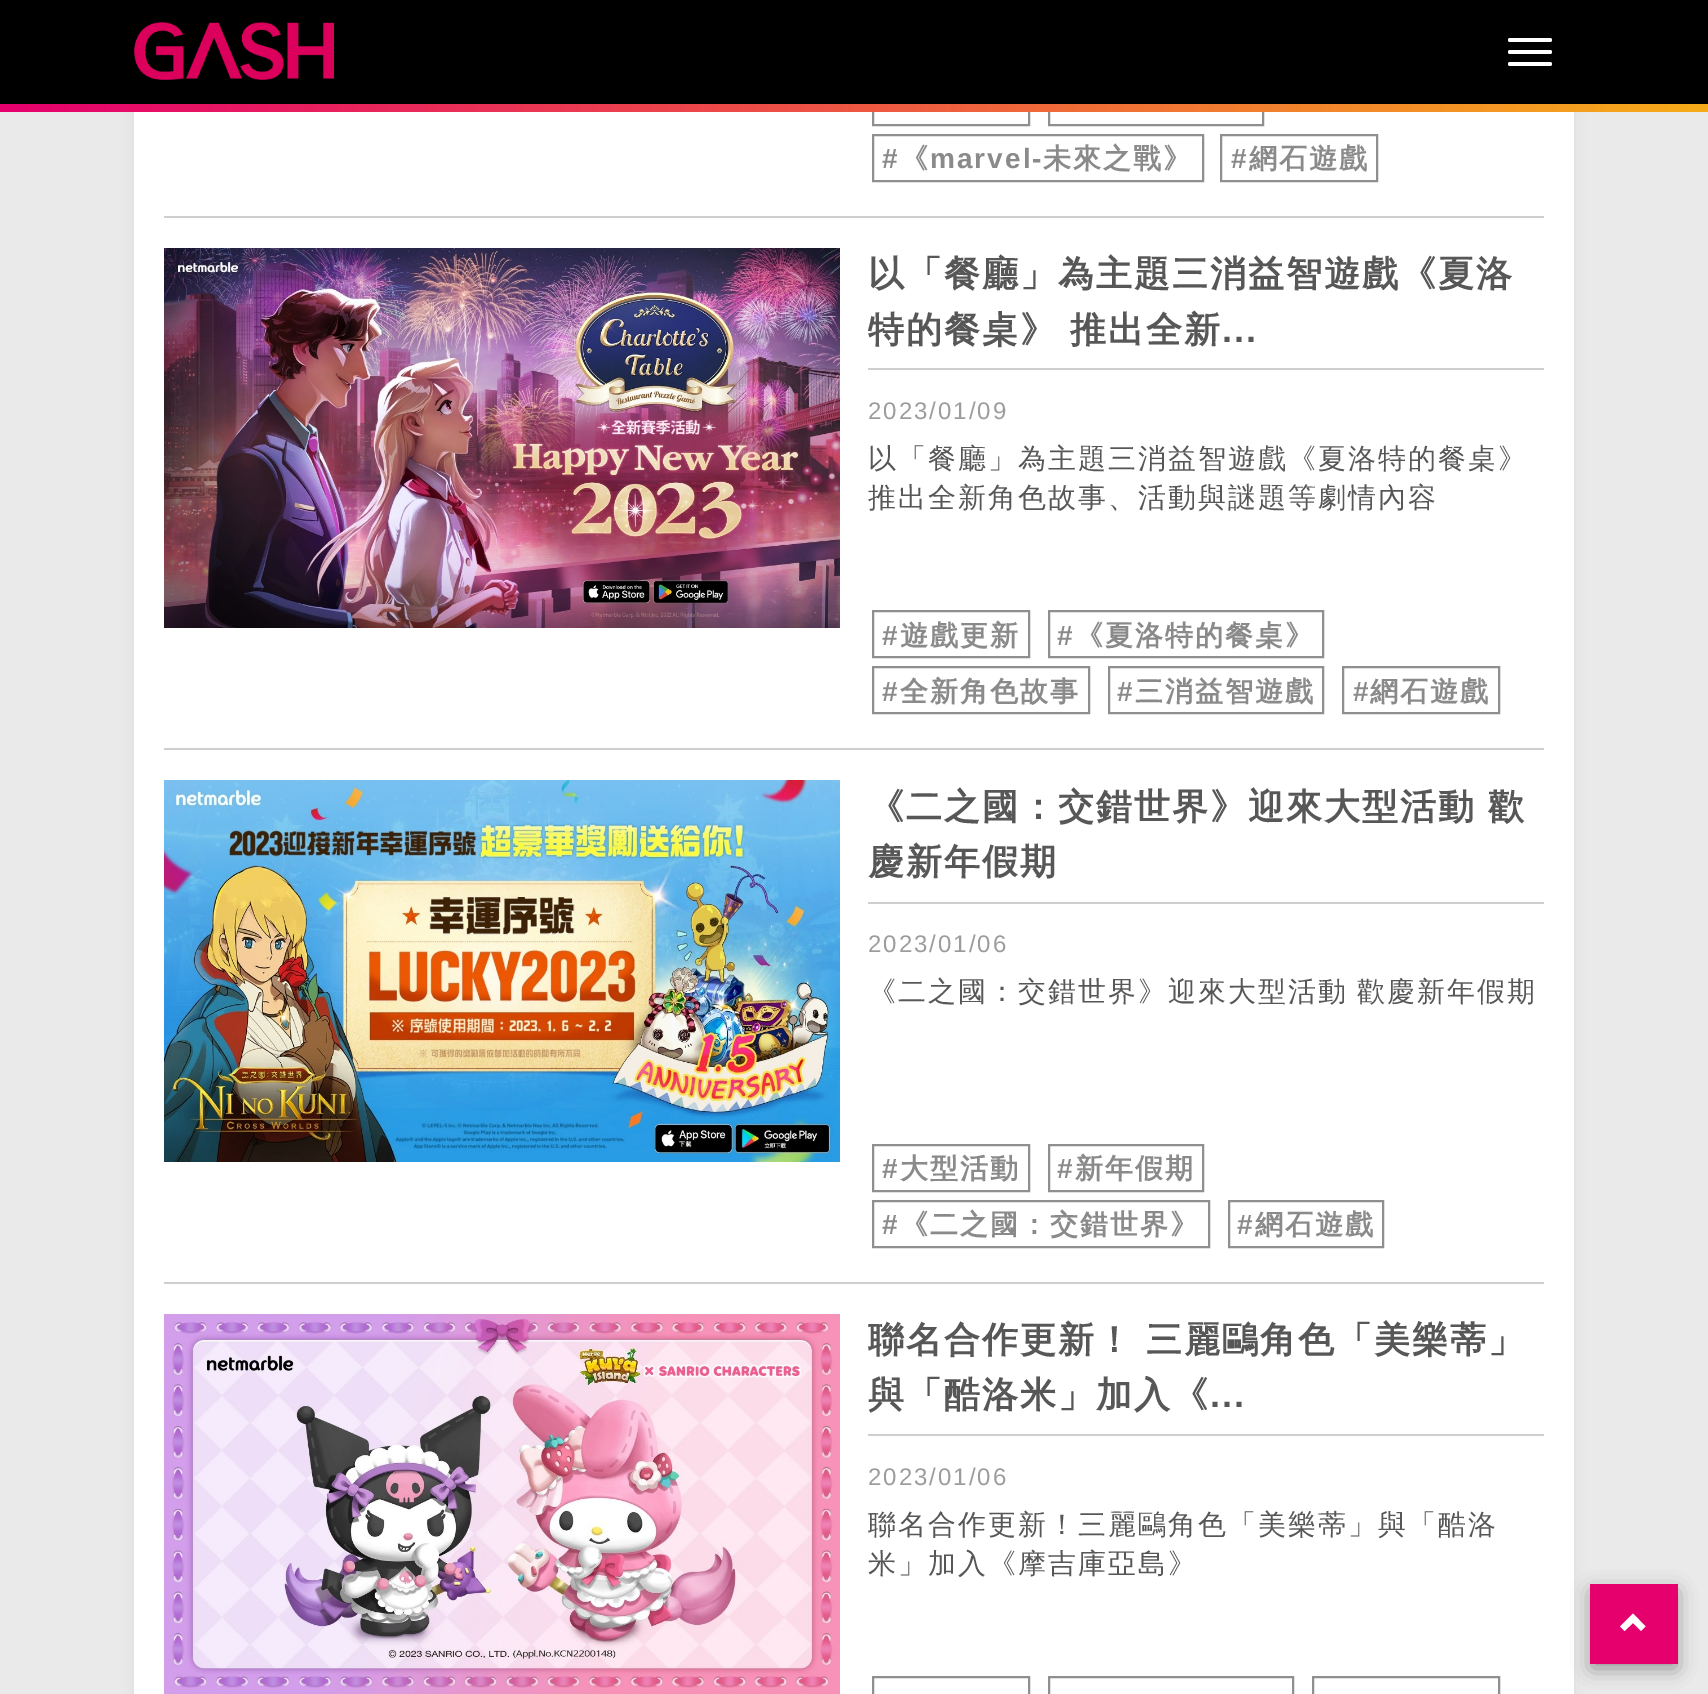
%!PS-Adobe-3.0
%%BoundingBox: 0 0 1708 1694
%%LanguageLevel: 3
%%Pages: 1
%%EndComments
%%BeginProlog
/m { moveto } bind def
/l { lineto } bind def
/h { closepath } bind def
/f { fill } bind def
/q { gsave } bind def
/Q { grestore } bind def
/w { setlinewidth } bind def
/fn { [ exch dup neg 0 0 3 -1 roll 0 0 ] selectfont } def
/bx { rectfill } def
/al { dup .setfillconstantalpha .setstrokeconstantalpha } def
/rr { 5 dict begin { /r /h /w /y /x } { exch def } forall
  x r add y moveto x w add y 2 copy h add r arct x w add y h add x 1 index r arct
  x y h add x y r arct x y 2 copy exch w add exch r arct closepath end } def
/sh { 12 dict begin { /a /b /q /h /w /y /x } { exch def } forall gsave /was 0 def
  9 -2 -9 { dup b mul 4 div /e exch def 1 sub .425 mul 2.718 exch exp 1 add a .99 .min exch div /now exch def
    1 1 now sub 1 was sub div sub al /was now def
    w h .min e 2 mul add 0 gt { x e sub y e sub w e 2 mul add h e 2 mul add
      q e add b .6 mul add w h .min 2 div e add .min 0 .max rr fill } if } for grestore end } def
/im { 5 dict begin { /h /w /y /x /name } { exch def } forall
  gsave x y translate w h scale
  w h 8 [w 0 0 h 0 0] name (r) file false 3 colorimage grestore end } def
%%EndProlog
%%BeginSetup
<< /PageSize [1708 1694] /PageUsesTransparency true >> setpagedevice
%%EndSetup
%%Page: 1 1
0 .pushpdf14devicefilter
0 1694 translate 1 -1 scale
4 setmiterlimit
0.918 setgray
0 0 1708 1694 bx
0 setgray
134 -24 1440 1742 0 8 0.06 sh
1 setgray
134 112 1440 1582 bx
0.561 setgray
2 w
873 79 156 46 rectstroke
1049 79 214 46 rectstroke
0 setgray
0 0 1708 104 bx
(image0.raw) 134 22 200 58 im
1 setgray
1508 38 44 4 2 rr f
1508 50 44 4 2 rr f
1508 62 44 4 2 rr f
q 0 104 m 1708 104 l 1708 112 l 0 112 l h clip newpath
<< /ShadingType 2 /ColorSpace /DeviceRGB /Coords [0 108 1708 108] /Extend [true true] /Function << /FunctionType 3 /Domain [0 1] /Functions [<< /FunctionType 2 /Domain [0 1] /C0 [0.898 0 0.431] /C1 [0.945 0.475 0.196] /N 1 >> << /FunctionType 2 /Domain [0 1] /C0 [0.945 0.475 0.196] /C1 [0.965 0.675 0.098] /N 1 >>] /Bounds [0.7] /Encode [0 1 0 1] >> >> shfill Q
0.561 setgray
873 135 330 46 rectstroke
/LiberationSans-Bold 28 fn
0.541 setgray
882 168 m 2 0 (#) ashow
/WenQuanYiZenHei-Bold 28 fn
900 168 m 2 0 (《) ashow
/LiberationSans-Bold 28 fn
930 168 m 2 0 (marvel-) ashow
/WenQuanYiZenHei-Bold 28 fn
1043 168 m 2 0 (未來之戰》) ashow
0.561 setgray
1221 135 156 46 rectstroke
/LiberationSans-Bold 28 fn
0.541 setgray
1231 168 m 2 0 (#) ashow
/WenQuanYiZenHei-Bold 28 fn
1249 168 m 2 0 (網石遊戲) ashow
0.812 setgray
164 216 1380 2 bx
(image1.raw) 164 248 676 380 im
868 368 676 2 bx
/WenQuanYiZenHei-Bold 36 fn
0.341 setgray
868 286 m 2 0 (以「餐廳」為主題三消益智遊戲《夏洛) ashow
868 342 m -1 0 32 2 0 (特的餐桌》 推出全新) awidthshow
/LiberationSans-Bold 36 fn
1222 342 m 2 0 (...) ashow
/LiberationSans-Regular 24 fn
0.612 setgray
868 419 m 2 0 (2023/01/09) ashow
/WenQuanYiZenHei-Medium 28 fn
0.341 setgray
868 468 m 2 0 (以「餐廳」為主題三消益智遊戲《夏洛特的餐桌》) ashow
868 507 m 2 0 (推出全新角色故事、活動與謎題等劇情內容) ashow
0.561 setgray
873 611 156 46 rectstroke
/LiberationSans-Bold 28 fn
0.541 setgray
882 645 m 2 0 (#) ashow
/WenQuanYiZenHei-Bold 28 fn
900 645 m 2 0 (遊戲更新) ashow
0.561 setgray
1049 611 274 46 rectstroke
/LiberationSans-Bold 28 fn
0.541 setgray
1057 645 m 2 0 (#) ashow
/WenQuanYiZenHei-Bold 28 fn
1075 645 m 2 0 (《夏洛特的餐桌》) ashow
0.561 setgray
873 667 216 46 rectstroke
/LiberationSans-Bold 28 fn
0.541 setgray
882 701 m 2 0 (#) ashow
/WenQuanYiZenHei-Bold 28 fn
900 701 m 2 0 (全新角色故事) ashow
0.561 setgray
1109 667 214 46 rectstroke
/LiberationSans-Bold 28 fn
0.541 setgray
1117 701 m 2 0 (#) ashow
/WenQuanYiZenHei-Bold 28 fn
1135 701 m 2 0 (三消益智遊戲) ashow
0.561 setgray
1343 667 156 46 rectstroke
/LiberationSans-Bold 28 fn
0.541 setgray
1353 701 m 2 0 (#) ashow
/WenQuanYiZenHei-Bold 28 fn
1370 701 m 2 0 (網石遊戲) ashow
0.812 setgray
164 748 1380 2 bx
(image2.raw) 164 780 676 382 im
868 902 676 2 bx
/WenQuanYiZenHei-Bold 36 fn
0.341 setgray
868 819 m -1 0 32 2 0 (《二之國：交錯世界》迎來大型活動 歡) awidthshow
868 874 m 2 0 (慶新年假期) ashow
/LiberationSans-Regular 24 fn
0.612 setgray
868 952 m 2 0 (2023/01/06) ashow
/WenQuanYiZenHei-Medium 28 fn
0.341 setgray
868 1001 m -1 0 32 2 0 (《二之國：交錯世界》迎來大型活動 歡慶新年假期) awidthshow
0.561 setgray
873 1145 156 46 rectstroke
/LiberationSans-Bold 28 fn
0.541 setgray
882 1178 m 2 0 (#) ashow
/WenQuanYiZenHei-Bold 28 fn
900 1178 m 2 0 (大型活動) ashow
0.561 setgray
1049 1145 154 46 rectstroke
/LiberationSans-Bold 28 fn
0.541 setgray
1057 1178 m 2 0 (#) ashow
/WenQuanYiZenHei-Bold 28 fn
1075 1178 m 2 0 (新年假期) ashow
0.561 setgray
873 1201 336 46 rectstroke
/LiberationSans-Bold 28 fn
0.541 setgray
882 1234 m 2 0 (#) ashow
/WenQuanYiZenHei-Bold 28 fn
900 1234 m 2 0 (《二之國：交錯世界》) ashow
0.561 setgray
1229 1201 154 46 rectstroke
/LiberationSans-Bold 28 fn
0.541 setgray
1237 1234 m 2 0 (#) ashow
/WenQuanYiZenHei-Bold 28 fn
1255 1234 m 2 0 (網石遊戲) ashow
0.812 setgray
164 1282 1380 2 bx
(image3.raw) 164 1314 676 380 im
868 1434 676 2 bx
/WenQuanYiZenHei-Bold 36 fn
0.341 setgray
868 1352 m -1 0 32 2 0 (聯名合作更新！ 三麗鷗角色「美樂蒂」) awidthshow
868 1407 m 2 0 (與「酷洛米」加入《) ashow
/LiberationSans-Bold 36 fn
1210 1407 m 2 0 (...) ashow
/LiberationSans-Regular 24 fn
0.612 setgray
868 1485 m 2 0 (2023/01/06) ashow
/WenQuanYiZenHei-Medium 28 fn
0.341 setgray
868 1534 m 2 0 (聯名合作更新！三麗鷗角色「美樂蒂」與「酷洛) ashow
868 1573 m 2 0 (米」加入《摩吉庫亞島》) ashow
0.561 setgray
873 1677 156 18 rectstroke
1049 1677 244 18 rectstroke
1313 1677 186 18 rectstroke
0 setgray
1592 1592 84 76 0 10 0.4 sh
0.898 0 0.431 setrgbcolor
1590 1584 88 80 bx
1 setgray
1645.5 1626.5 m 1641 1631 l 1633 1623 l 1624.5 1631 l 1620 1626.5 l 1633 1613.5 l h f
.poppdf14devicefilter showpage
%%EOF
